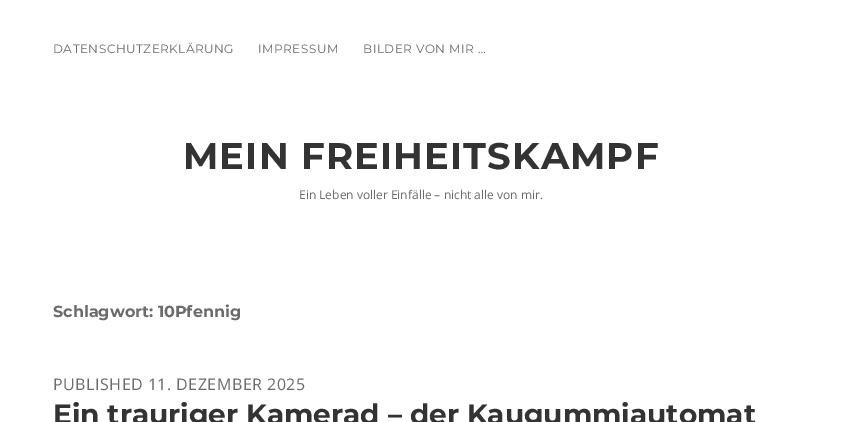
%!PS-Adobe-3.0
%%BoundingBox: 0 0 842 422
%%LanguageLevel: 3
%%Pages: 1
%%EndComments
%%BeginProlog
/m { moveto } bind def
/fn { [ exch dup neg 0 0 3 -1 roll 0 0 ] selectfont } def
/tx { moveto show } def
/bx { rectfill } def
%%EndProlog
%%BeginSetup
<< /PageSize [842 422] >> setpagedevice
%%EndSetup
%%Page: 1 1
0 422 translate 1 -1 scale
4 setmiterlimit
1 setgray
0 0 842 422 bx
/Montserrat-Regular 12 fn
0.42 setgray
53 53 m 0.5 0 (DATENSCHUTZERKLÄRUNG) ashow
258 53 m 0.5 0 (IMPRESSUM) ashow
363 53 m 0.5 0 (BILDER VON MIR …) ashow
/Montserrat-Bold 37 fn
0.2 setgray
183 169 m 1.1 0 (MEIN FREIHEITSKAMPF) ashow
/OpenSans-Regular 12 fn
0.42 setgray
(Ein Leben voller Einfälle – nicht alle von mir.) 299 199 tx
/Montserrat-Bold 16 fn
(Schlagwort: 10Pfennig) 53 317 tx
/OpenSans-Regular 16 fn
53 390 m 0.5 0 (PUBLISHED 11. DEZEMBER 2025) ashow
/Montserrat-Bold 28 fn
0.2 setgray
(Ein trauriger Kamerad – der Kaugummiautomat) 53 424 tx
showpage
%%EOF
